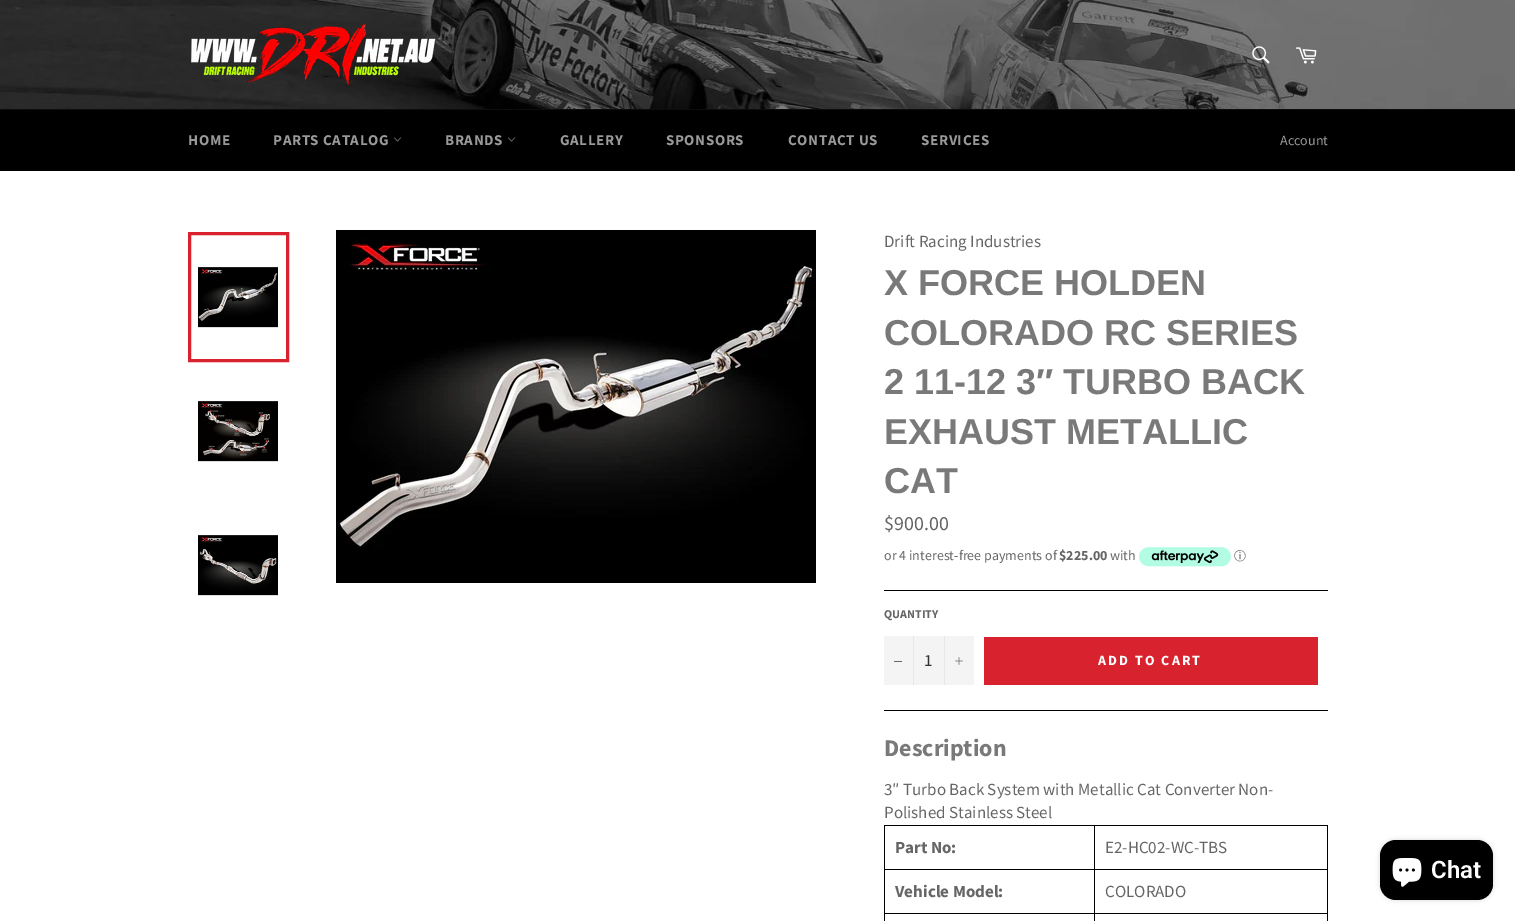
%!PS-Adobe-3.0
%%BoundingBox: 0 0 1515 921
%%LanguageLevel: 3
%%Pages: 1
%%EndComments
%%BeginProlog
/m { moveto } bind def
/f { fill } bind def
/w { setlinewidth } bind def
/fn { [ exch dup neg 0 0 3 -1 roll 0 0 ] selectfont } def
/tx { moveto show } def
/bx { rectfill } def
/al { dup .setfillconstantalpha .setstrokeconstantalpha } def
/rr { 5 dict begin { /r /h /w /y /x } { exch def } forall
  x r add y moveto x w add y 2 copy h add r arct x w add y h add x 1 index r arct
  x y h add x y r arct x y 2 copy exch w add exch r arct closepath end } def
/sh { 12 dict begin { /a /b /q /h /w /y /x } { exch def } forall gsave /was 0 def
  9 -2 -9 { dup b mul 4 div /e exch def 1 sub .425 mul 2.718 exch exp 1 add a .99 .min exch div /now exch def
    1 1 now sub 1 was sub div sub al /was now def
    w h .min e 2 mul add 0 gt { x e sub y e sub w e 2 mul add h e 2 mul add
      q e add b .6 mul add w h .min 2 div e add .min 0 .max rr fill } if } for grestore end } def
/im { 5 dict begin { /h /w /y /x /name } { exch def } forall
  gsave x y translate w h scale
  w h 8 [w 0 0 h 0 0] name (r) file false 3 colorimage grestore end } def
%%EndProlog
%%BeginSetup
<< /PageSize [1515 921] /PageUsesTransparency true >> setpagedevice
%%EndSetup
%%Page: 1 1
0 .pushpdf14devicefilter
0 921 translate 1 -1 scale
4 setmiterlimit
1 setgray
0 0 1515 921 bx
(image0.raw) 0 0 1515 109 im
(image1.raw) 191 23 245 63 im
(image2.raw) 1252 46 18 18 im
(image3.raw) 1295 47 22 17 im
0 setgray
0 110 1515 61 bx
0.051 setgray
0 109 1515 1 bx
/SourceSansPro-Bold 15 fn
0.6 setgray
188 145 m 0.6 0 (HOME) ashow
273 145 m 0.6 0 (PARTS CATALOG) ashow
(image4.raw) 394 137 7 5 im
445 145 m 0.6 0 (BRANDS) ashow
(image4.raw) 508 137 7 5 im
560 145 m 0.6 0 (GALLERY) ashow
666 145 m 0.6 0 (SPONSORS) ashow
788 145 m 0.6 0 (CONTACT US) ashow
921 145 m 0.6 0 (SERVICES) ashow
/SourceSansPro-Regular 14 fn
(Account) 1280 145 tx
(image5.raw) 198 267 80 61 im
0.847 0.137 0.184 setrgbcolor
3 w
189.5 233.5 98 127 rectstroke
(image6.raw) 198 401 80 61 im
(image7.raw) 198 535 80 61 im
(image8.raw) 336 230 480 353 im
/SourceSansPro-Regular 17 fn
0.4 setgray
(Drift Racing Industries) 884 247 tx
/LiberationSans-Bold 36 fn
0.475 setgray
(X FORCE HOLDEN) 884 295 tx
(COLORADO RC SERIES) 884 345 tx
(2 11-12 3″ TURBO BACK) 884 394 tx
(EXHAUST METALLIC) 884 444 tx
(CAT) 884 493 tx
/SourceSansPro-Regular 20 fn
0.4 setgray
($900.00) 884 530 tx
/SourceSansPro-Regular 14 fn
(or 4 interest-free payments of) 884 560 tx
/SourceSansPro-Bold 14 fn
($225.00) 1059 560 tx
/SourceSansPro-Regular 14 fn
(with) 1110 560 tx
(image9.raw) 1139 547 92 20 im
/WenQuanYiZenHei-Medium 12 fn
(ⓘ) 1234 560 tx
0 setgray
884 590 444 1 bx
/SourceSansPro-Bold 12 fn
0.4 setgray
(QUANTITY) 884 618 tx
0.957 setgray
884 636 90 49 bx
0.906 setgray
913 636 1 49 bx
0.4 setgray
894 661 8 1 bx
/SourceSansPro-Regular 17 fn
0.2 setgray
(1) 924 666 tx
0.906 setgray
944 636 1 49 bx
(image10.raw) 955 657 8 8 im
0.847 0.137 0.184 setrgbcolor
984 637 334 48 bx
/SourceSansPro-Bold 14 fn
1 setgray
1098 665 m 2.1 0 (ADD TO CART) ashow
0 setgray
884 710 444 1 bx
/SourceSansPro-Bold 24 fn
0.475 setgray
(Description) 884 756 tx
/SourceSansPro-Regular 17 fn
0.4 setgray
(3″ Turbo Back System with Metallic Cat Converter Non-) 884 795 tx
(Polished Stainless Steel) 884 818 tx
0 setgray
1094 825 234 1 bx
1094 869 234 1 bx
1094 913 234 1 bx
1094 913 1 8 bx
884 913 211 1 bx
1094 869 1 45 bx
884 869 211 1 bx
1094 825 1 45 bx
884 825 211 1 bx
884 913 1 8 bx
884 869 1 45 bx
884 825 1 45 bx
/SourceSansPro-Bold 17 fn
0.4 setgray
(Part No:) 895 853 tx
0 setgray
1327 913 1 8 bx
1327 869 1 45 bx
1327 825 1 45 bx
/SourceSansPro-Regular 17 fn
0.4 setgray
(E2-HC02-WC-TBS) 1105 853 tx
/SourceSansPro-Bold 17 fn
(Vehicle Model:) 895 897 tx
/SourceSansPro-Regular 17 fn
(COLORADO) 1105 897 tx
0 setgray
1380 840 113 60 16 2.5 0.15 sh
1380 840 113 60 16 rr f
(image11.raw) 1392 858 30 29 im
/Roboto-SemiBold 24 fn
1 setgray
(Chat) 1431 878 tx
.poppdf14devicefilter showpage
%%EOF
